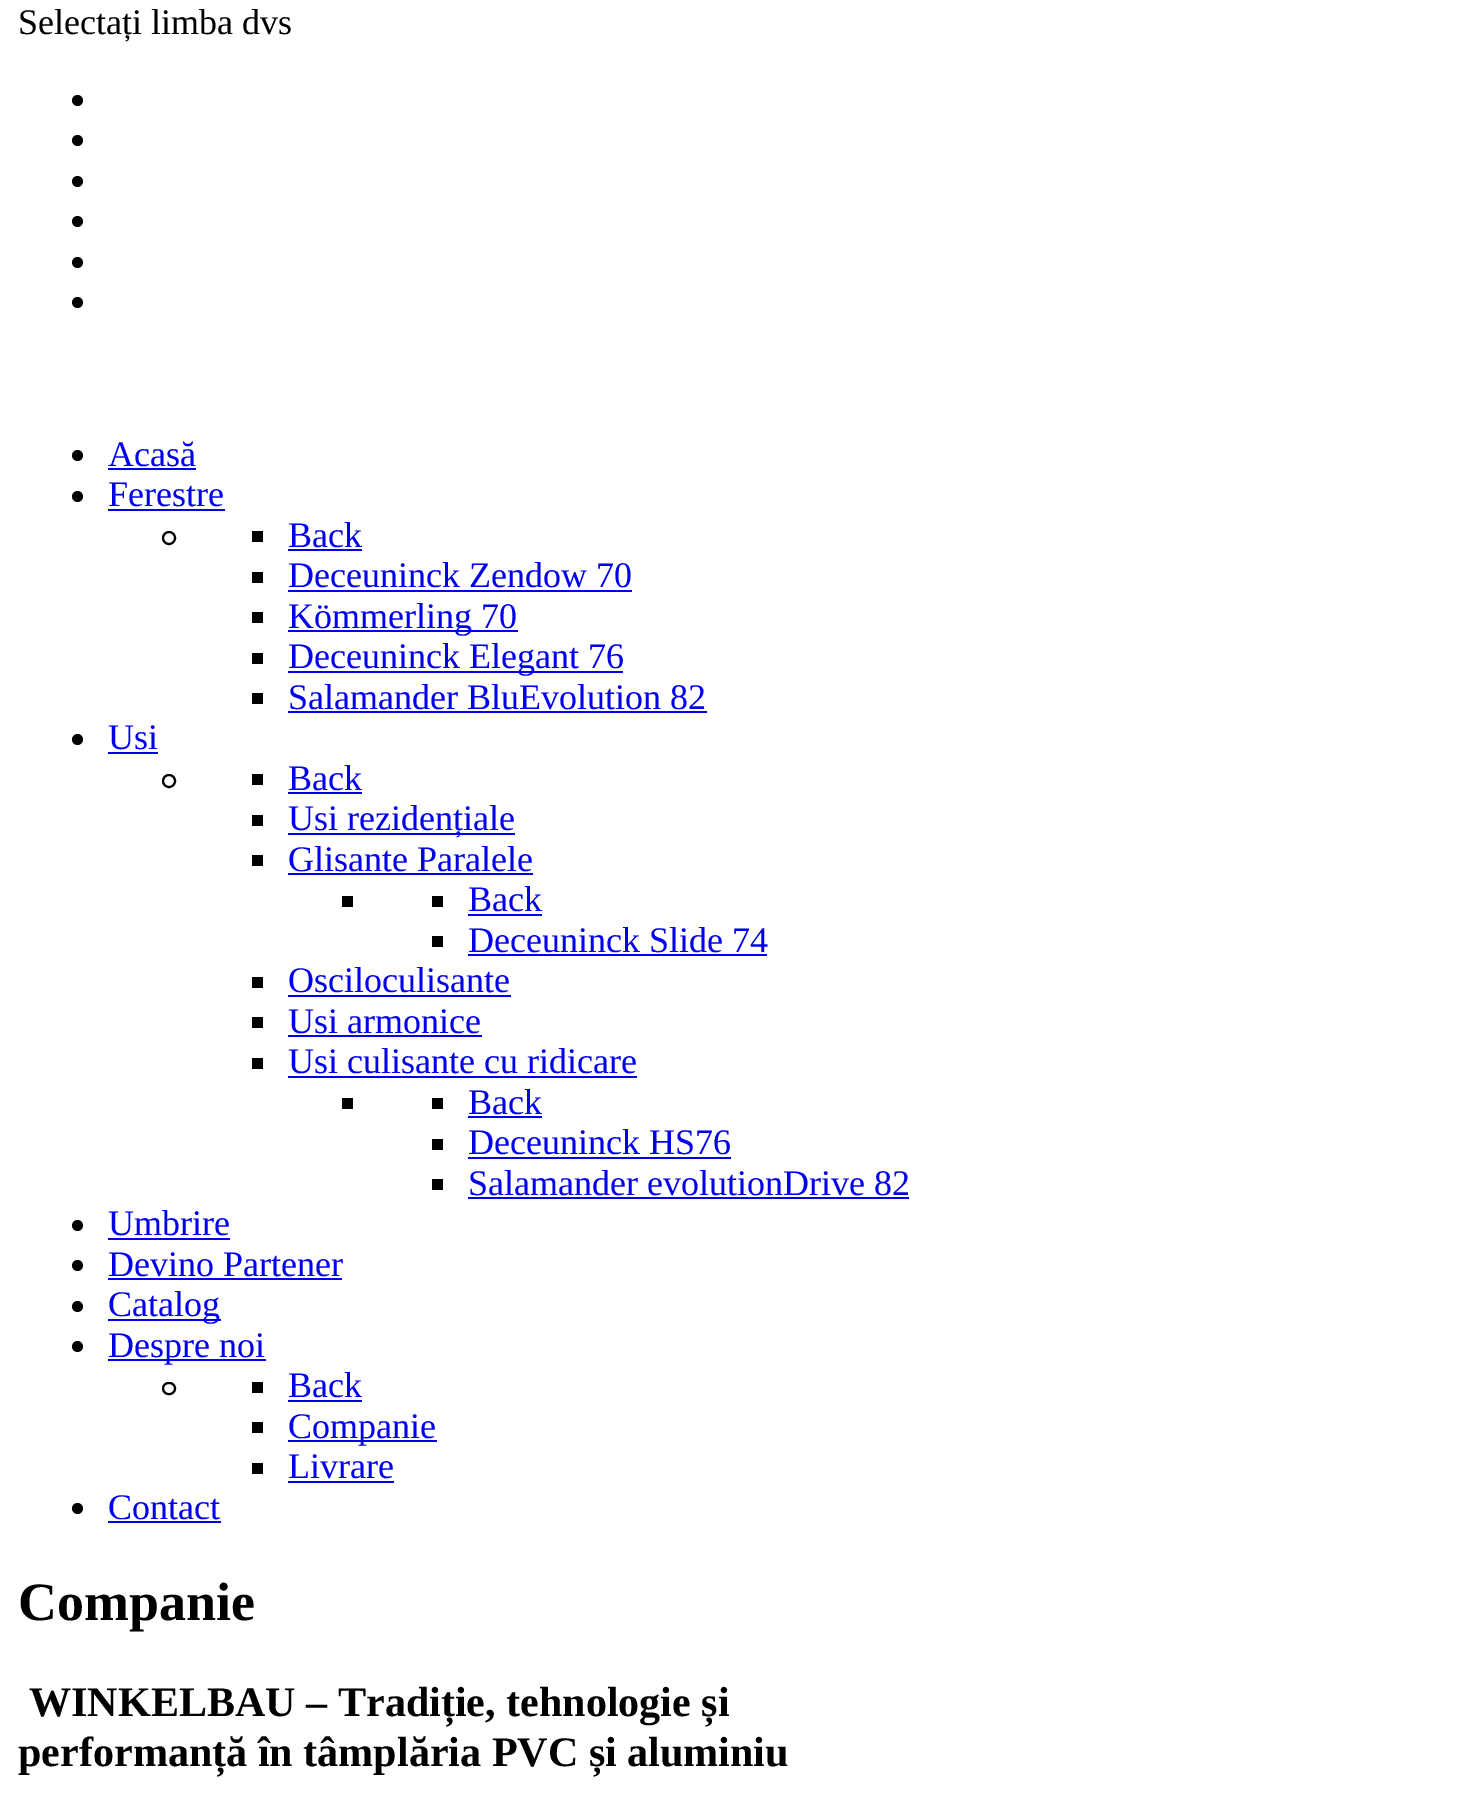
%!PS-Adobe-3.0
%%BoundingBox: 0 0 1457 1802
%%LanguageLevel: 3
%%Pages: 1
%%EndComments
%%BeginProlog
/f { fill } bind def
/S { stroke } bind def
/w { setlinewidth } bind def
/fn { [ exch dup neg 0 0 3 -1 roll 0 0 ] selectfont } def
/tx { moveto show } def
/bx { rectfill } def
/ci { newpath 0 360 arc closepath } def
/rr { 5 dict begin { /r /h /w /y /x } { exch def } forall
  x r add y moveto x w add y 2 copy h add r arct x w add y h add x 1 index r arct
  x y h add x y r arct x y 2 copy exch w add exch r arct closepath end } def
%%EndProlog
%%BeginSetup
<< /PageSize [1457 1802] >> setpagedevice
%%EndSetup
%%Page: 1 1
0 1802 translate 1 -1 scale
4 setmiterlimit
1 setgray
0 0 1457 1802 bx
/LiberationSerif-Regular 36 fn
0 setgray
(Selectați limba dvs) 18 34 tx
77.5 100.5 5.5 ci f
77.5 140.5 5.5 ci f
77.5 181.5 5.5 ci f
77.5 221.5 5.5 ci f
77.5 262.5 5.5 ci f
77.5 302.5 5.5 ci f
77.5 455.5 5.5 ci f
0 0 0.933 setrgbcolor
(Acasă) 108 466 tx
108 468 88 2 bx
0 setgray
77.5 496.5 5.5 ci f
0 0 0.933 setrgbcolor
(Ferestre) 108 506 tx
108 509 117 2 bx
0 setgray
2 w
169 538 6 ci S
252 531 11 11 bx
0 0 0.933 setrgbcolor
(Back) 288 547 tx
288 549 74 2 bx
0 setgray
252 572 11 11 bx
0 0 0.933 setrgbcolor
(Deceuninck Zendow 70) 288 587 tx
288 590 344 2 bx
0 setgray
252 612 11 11 bx
0 0 0.933 setrgbcolor
288 630 230 2 bx
(Kömmerling 70) 288 628 tx
0 setgray
252 653 11 11 bx
0 0 0.933 setrgbcolor
288 671 335 2 bx
(Deceuninck Elegant 76) 288 668 tx
0 setgray
252 693 11 11 bx
0 0 0.933 setrgbcolor
(Salamander BluEvolution 82) 288 709 tx
288 711 419 2 bx
0 setgray
77.5 739.5 5.5 ci f
0 0 0.933 setrgbcolor
(Usi) 108 749 tx
108 752 50 2 bx
0 setgray
169 781 6 ci S
252 774 11 11 bx
0 0 0.933 setrgbcolor
(Back) 288 790 tx
288 792 74 2 bx
0 setgray
252 815 11 11 bx
0 0 0.933 setrgbcolor
288 833 227 2 bx
(Usi rezidențiale) 288 830 tx
0 setgray
252 855 11 11 bx
0 0 0.933 setrgbcolor
(Glisante Paralele) 288 871 tx
288 873 245 2 bx
0 setgray
342 896 11 11 bx
432 896 11 11 bx
0 0 0.933 setrgbcolor
(Back) 468 911 tx
468 914 74 2 bx
0 setgray
432 936 11 11 bx
0 0 0.933 setrgbcolor
(Deceuninck Slide 74) 468 952 tx
468 954 299 2 bx
0 setgray
252 977 11 11 bx
0 0 0.933 setrgbcolor
(Osciloculisante) 288 992 tx
288 995 223 2 bx
0 setgray
252 1017 11 11 bx
0 0 0.933 setrgbcolor
(Usi armonice) 288 1033 tx
288 1035 194 2 bx
0 setgray
252 1058 11 11 bx
0 0 0.933 setrgbcolor
(Usi culisante cu ridicare) 288 1073 tx
288 1076 349 2 bx
0 setgray
342 1098 11 11 bx
432 1098 11 11 bx
0 0 0.933 setrgbcolor
(Back) 468 1114 tx
468 1116 74 2 bx
0 setgray
432 1139 11 11 bx
0 0 0.933 setrgbcolor
(Deceuninck HS76) 468 1154 tx
468 1157 263 2 bx
0 setgray
432 1179 11 11 bx
0 0 0.933 setrgbcolor
(Salamander evolutionDrive 82) 468 1195 tx
468 1197 441 2 bx
0 setgray
77.5 1225.5 5.5 ci f
0 0 0.933 setrgbcolor
(Umbrire) 108 1235 tx
108 1238 122 2 bx
0 setgray
77.5 1265.5 5.5 ci f
0 0 0.933 setrgbcolor
(Devino Partener) 108 1276 tx
108 1278 234 2 bx
0 setgray
77.5 1306.5 5.5 ci f
0 0 0.933 setrgbcolor
108 1319 113 2 bx
(Catalog) 108 1316 tx
0 setgray
77.5 1346.5 5.5 ci f
0 0 0.933 setrgbcolor
108 1359 158 2 bx
(Despre noi) 108 1357 tx
0 setgray
163 1383 12 11 5.5 rr S
252 1382 11 11 bx
0 0 0.933 setrgbcolor
(Back) 288 1397 tx
288 1400 74 2 bx
0 setgray
252 1422 11 11 bx
0 0 0.933 setrgbcolor
288 1440 149 2 bx
(Companie) 288 1438 tx
0 setgray
252 1463 11 11 bx
0 0 0.933 setrgbcolor
(Livrare) 288 1478 tx
288 1481 106 2 bx
0 setgray
77.5 1508.5 5.5 ci f
0 0 0.933 setrgbcolor
(Contact) 108 1519 tx
108 1521 113 2 bx
/LiberationSerif-Bold 54 fn
0 setgray
(Companie) 18 1620 tx
/LiberationSerif-Bold 42.1 fn
(WINKELBAU – Tradiție, tehnologie și) 29 1716 tx
(performanță în tâmplăria PVC și aluminiu) 18 1766 tx
showpage
%%EOF
